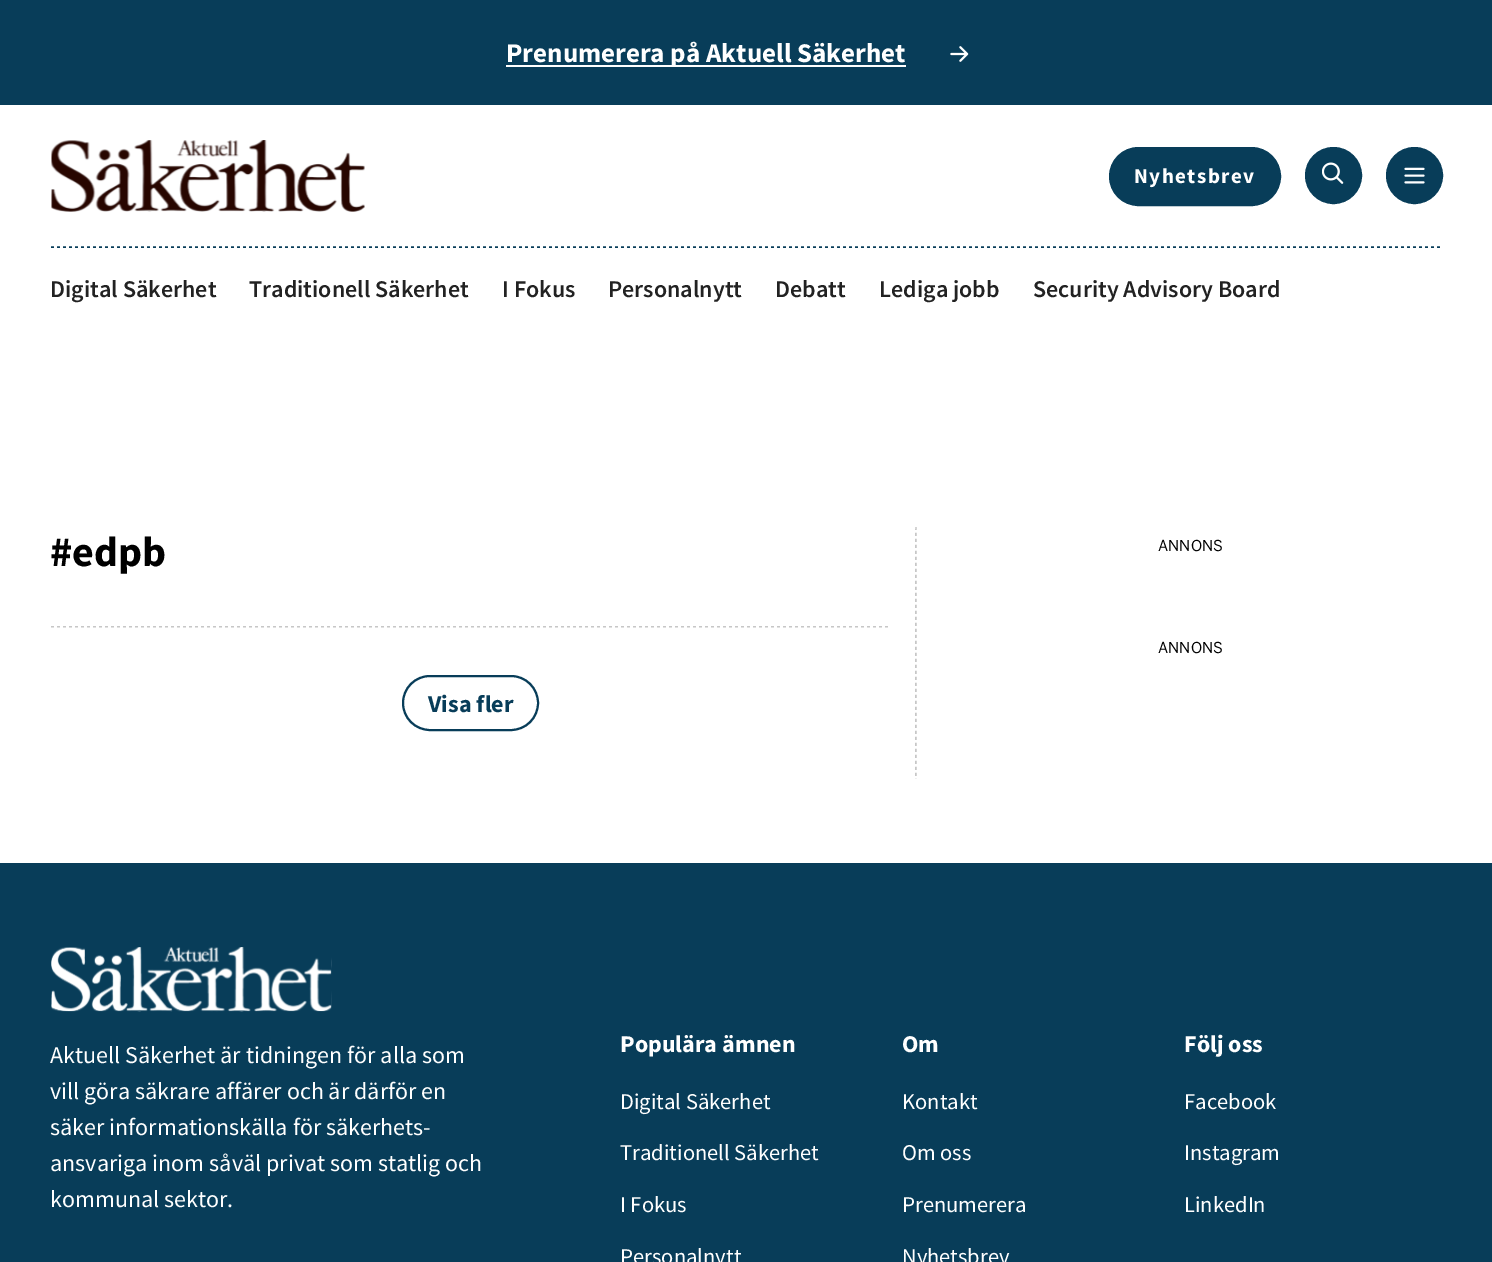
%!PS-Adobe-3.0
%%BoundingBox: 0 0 1492 1262
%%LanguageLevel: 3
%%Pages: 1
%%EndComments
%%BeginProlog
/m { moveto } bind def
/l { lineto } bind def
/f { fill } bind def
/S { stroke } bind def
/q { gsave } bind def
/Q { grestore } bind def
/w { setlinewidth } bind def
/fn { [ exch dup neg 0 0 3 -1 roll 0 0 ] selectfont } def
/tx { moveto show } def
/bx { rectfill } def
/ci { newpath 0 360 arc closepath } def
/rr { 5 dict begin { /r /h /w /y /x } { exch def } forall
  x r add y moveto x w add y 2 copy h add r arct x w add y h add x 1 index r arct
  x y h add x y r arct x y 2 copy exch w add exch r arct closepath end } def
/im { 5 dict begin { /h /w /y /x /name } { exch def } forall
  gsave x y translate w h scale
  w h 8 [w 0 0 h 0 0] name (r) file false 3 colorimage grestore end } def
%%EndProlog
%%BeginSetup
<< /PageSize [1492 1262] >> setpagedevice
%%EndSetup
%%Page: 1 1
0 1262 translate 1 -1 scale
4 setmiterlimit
1 setgray
0 0 1492 1262 bx
0.031 0.239 0.349 setrgbcolor
0 0 1492 105 bx
1 setgray
506 65 400 2 bx
/SourceSansPro-Bold 27 fn
(Prenumerera på Aktuell Säkerhet) 506 62 tx
(image0.raw) 950 46 19 16 im
(image1.raw) 51 140 314 72 im
0.031 0.239 0.349 setrgbcolor
1110 148 170 57 28.5 rr q f Q
2 w
S
/SourceSansPro-Bold 21 fn
1 setgray
1134 183 m 1.4 0 (Nyhetsbrev) ashow
0.031 0.239 0.349 setrgbcolor
1333.5 175.5 27.5 ci q f Q
S
(image2.raw) 1322 162 22 22 im
1414.5 175.5 27.5 ci q f Q
S
(image3.raw) 1404 167 21 17 im
q
51 246 1392 3 rectclip
1.5 w
[3 3] 0 setdash
-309 247 m 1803 247 l S
Q
/SourceSansPro-SemiBold 24 fn
0.133 setgray
(Digital Säkerhet) 50 297 tx
(Traditionell Säkerhet) 249 297 tx
(I Fokus) 502 297 tx
(Personalnytt) 608 297 tx
(Debatt) 775 297 tx
(Lediga jobb) 879 297 tx
(Security Advisory Board) 1033 297 tx
/SourceSansPro-Bold 42 fn
0 setgray
(#edpb) 50 566 tx
q
51 626 840 2 rectclip
0.78 setgray
1.5 w
[3 3] 0 setdash
51 626.5 m 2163 626.5 l S
Q
0.031 0.239 0.349 setrgbcolor
403 676 135 54 27 rr S
/SourceSansPro-Bold 24 fn
(Visa fler) 428 712 tx
q
915 527 2 252 rectclip
0.78 setgray
1.5 w
[3 3] 0 setdash
916 527 m 915.5 1082 l S
Q
/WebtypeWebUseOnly-Regular 15 fn
0 setgray
(ANNONS) 1158 551 tx
(ANNONS) 1158 653 tx
0.031 0.239 0.349 setrgbcolor
0 863 1492 399 bx
(image4.raw) 51 947 281 65 im
/SourceSansPro-Regular 24 fn
1 setgray
(Aktuell Säkerhet är tidningen för alla som) 50 1063 tx
(vill göra säkrare affärer och är därför en) 50 1099 tx
(säker informationskälla för säkerhets-) 50 1135 tx
(ansvariga inom såväl privat som statlig och) 50 1171 tx
(kommunal sektor.) 50 1207 tx
/SourceSansPro-Bold 24 fn
(Populära ämnen) 620 1052 tx
/SourceSansPro-Regular 22.5 fn
(Digital Säkerhet) 620 1109 tx
(Traditionell Säkerhet) 620 1160 tx
(I Fokus) 620 1212 tx
(Personalnytt) 620 1264 tx
/SourceSansPro-Bold 24 fn
(Om) 902 1052 tx
/SourceSansPro-Regular 22.5 fn
(Kontakt) 902 1109 tx
(Om oss) 902 1160 tx
(Prenumerera) 902 1212 tx
(Nyhetsbrev) 902 1264 tx
/SourceSansPro-Bold 24 fn
(Följ oss) 1184 1052 tx
/SourceSansPro-Regular 22.5 fn
(Facebook) 1184 1109 tx
(Instagram) 1184 1160 tx
(LinkedIn) 1184 1212 tx
showpage
%%EOF
